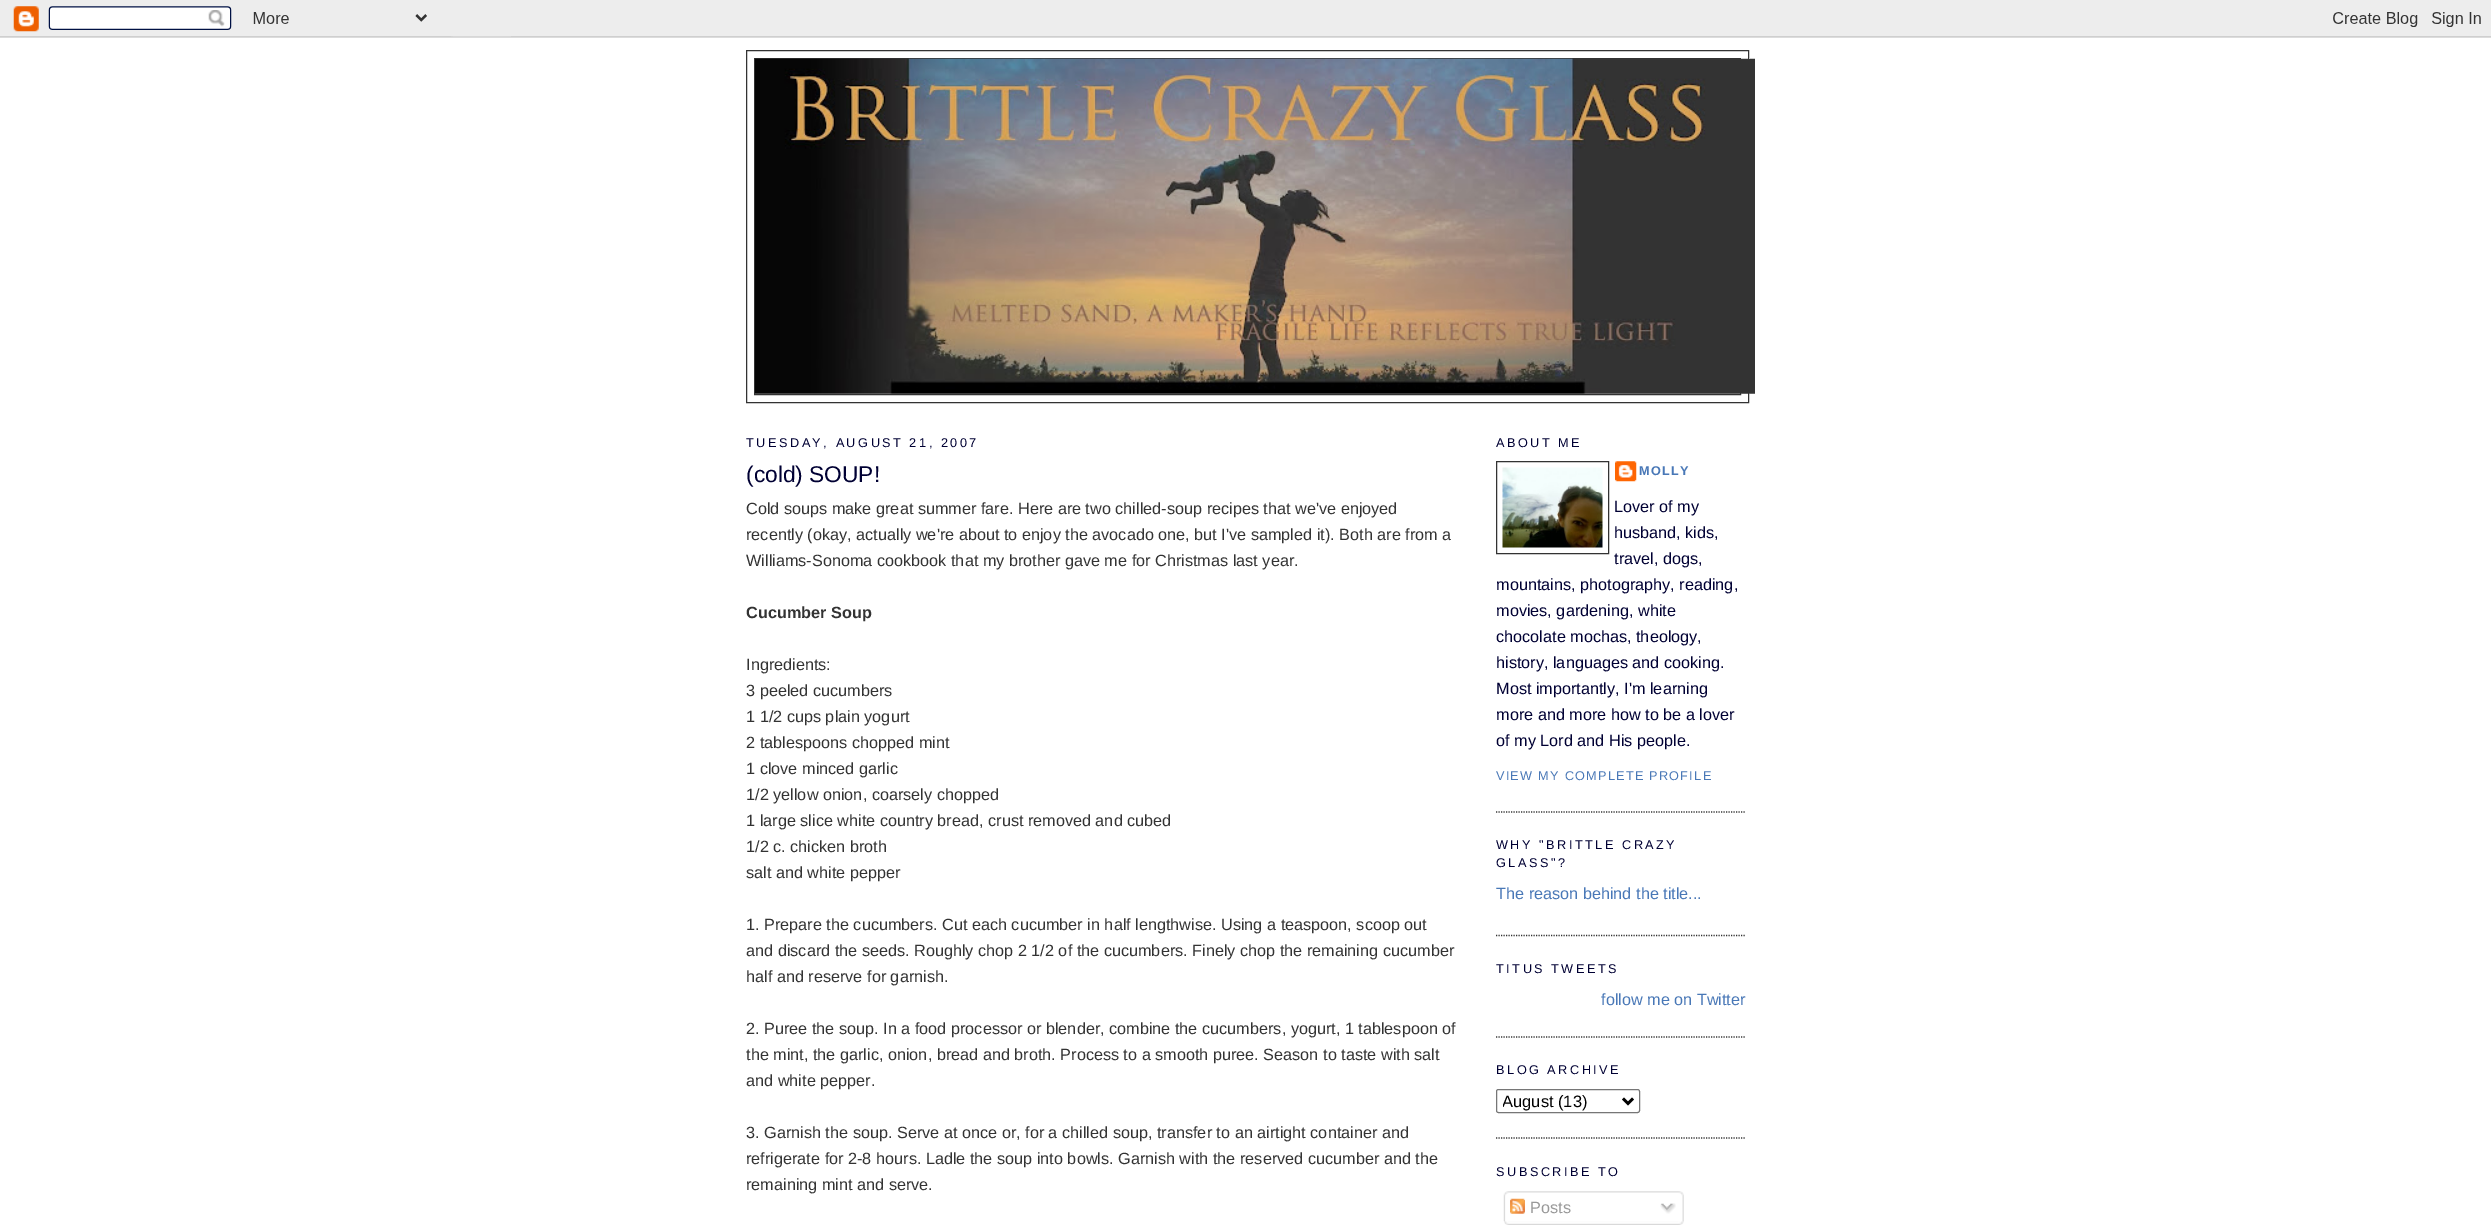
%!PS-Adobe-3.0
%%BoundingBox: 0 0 2491 1230
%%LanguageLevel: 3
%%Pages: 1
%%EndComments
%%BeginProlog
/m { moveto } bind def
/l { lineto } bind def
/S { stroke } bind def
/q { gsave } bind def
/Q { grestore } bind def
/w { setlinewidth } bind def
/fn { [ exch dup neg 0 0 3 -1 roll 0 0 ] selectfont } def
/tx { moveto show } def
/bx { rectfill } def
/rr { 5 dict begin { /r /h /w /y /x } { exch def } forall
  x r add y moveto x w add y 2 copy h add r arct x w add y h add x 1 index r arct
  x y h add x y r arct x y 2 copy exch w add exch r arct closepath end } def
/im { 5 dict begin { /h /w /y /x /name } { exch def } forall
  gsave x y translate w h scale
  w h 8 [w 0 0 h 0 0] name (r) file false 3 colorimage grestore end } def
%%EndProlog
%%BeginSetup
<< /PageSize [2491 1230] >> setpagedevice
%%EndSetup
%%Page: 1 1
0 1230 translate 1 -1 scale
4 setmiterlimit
1 setgray
0 0 2491 1230 bx
(image0.raw) 0 0 2491 38 im
0.2 setgray
746.5 50.5 1002 352 rectstroke
754.5 58.5 986 336 rectstroke
(image1.raw) 755 58 1000 336 im
/LiberationSans-Regular 12.7 fn
0 0 0.2 setrgbcolor
746 447 m 2.5 0 (TUESDAY, AUGUST 21, 2007) ashow
/LiberationSans-Regular 22.75 fn
(\(cold\) SOUP!) 746 482 tx
/LiberationSans-Regular 16.25 fn
0.2 setgray
(Cold soups make great summer fare. Here are two chilled-soup recipes that we've enjoyed) 746 514 tx
(recently \(okay, actually we're about to enjoy the avocado one, but I've sampled it\). Both are from a) 746 540 tx
(Williams-Sonoma cookbook that my brother gave me for Christmas last year.) 746 566 tx
/LiberationSans-Bold 16.25 fn
(Cucumber Soup) 746 618 tx
/LiberationSans-Regular 16.25 fn
(Ingredients:) 746 670 tx
(3 peeled cucumbers) 746 696 tx
(1 1/2 cups plain yogurt) 746 722 tx
(2 tablespoons chopped mint) 746 748 tx
(1 clove minced garlic) 746 774 tx
(1/2 yellow onion, coarsely chopped) 746 800 tx
(1 large slice white country bread, crust removed and cubed) 746 826 tx
(1/2 c. chicken broth) 746 852 tx
(salt and white pepper) 746 878 tx
(1. Prepare the cucumbers. Cut each cucumber in half lengthwise. Using a teaspoon, scoop out) 746 930 tx
(and discard the seeds. Roughly chop 2 1/2 of the cucumbers. Finely chop the remaining cucumber) 746 956 tx
(half and reserve for garnish.) 746 982 tx
(2. Puree the soup. In a food processor or blender, combine the cucumbers, yogurt, 1 tablespoon of) 746 1034 tx
(the mint, the garlic, onion, bread and broth. Process to a smooth puree. Season to taste with salt) 746 1060 tx
(and white pepper.) 746 1086 tx
(3. Garnish the soup. Serve at once or, for a chilled soup, transfer to an airtight container and) 746 1138 tx
(refrigerate for 2-8 hours. Ladle the soup into bowls. Garnish with the reserved cucumber and the) 746 1164 tx
(remaining mint and serve.) 746 1190 tx
1.2 w
[1.25 1.25] 0 setdash
1496 812 m 1746 812 l S
/LiberationSans-Regular 12.7 fn
0 0 0.2 setrgbcolor
1496 447 m 2.5 0 (ABOUT ME) ashow
0.2 setgray
1 w
[] 0 setdash
1496.5 461.5 112 92 rectstroke
(image2.raw) 1502 467 101 81 im
(image3.raw) 1615 461 22 21 im
/LiberationSans-Bold 12.7 fn
0.286 0.471 0.718 setrgbcolor
1639 475 m 1.25 0 (MOLLY) ashow
/LiberationSans-Regular 16.25 fn
0 0 0.2 setrgbcolor
(Lover of my) 1614 512 tx
(husband, kids,) 1614 538 tx
(travel, dogs,) 1614 564 tx
(mountains, photography, reading,) 1496 590 tx
(movies, gardening, white) 1496 616 tx
(chocolate mochas, theology,) 1496 642 tx
(history, languages and cooking.) 1496 668 tx
(Most importantly, I'm learning) 1496 694 tx
(more and more how to be a lover) 1496 720 tx
(of my Lord and His people.) 1496 746 tx
/LiberationSans-Regular 12.7 fn
0.286 0.471 0.718 setrgbcolor
1496 780 m 1.25 0 (VIEW MY COMPLETE PROFILE) ashow
0.2 setgray
1.2 w
[1.25 1.25] 0 setdash
1496 935.5 m 1746 935.5 l S
0 0 0.2 setrgbcolor
1496 849 m 2.5 0 (WHY "BRITTLE CRAZY) ashow
1496 867 m 2.5 0 (GLASS"?) ashow
/LiberationSans-Regular 16.25 fn
0.286 0.471 0.718 setrgbcolor
(The reason behind the title...) 1496 899 tx
0.2 setgray
1496 1037 m 1746 1037 l S
/LiberationSans-Regular 12.7 fn
0 0 0.2 setrgbcolor
1496 973 m 2.5 0 (TITUS TWEETS) ashow
/LiberationSans-Regular 16.25 fn
0.286 0.471 0.718 setrgbcolor
(follow me on Twitter) 1601 1005 tx
0.2 setgray
1496 1138 m 1746 1138 l S
/LiberationSans-Regular 12.7 fn
0 0 0.2 setrgbcolor
1496 1074 m 2.5 0 (BLOG ARCHIVE) ashow
0.463 setgray
1 w
[] 0 setdash
1496.5 1089.5 143 23 2 rr S
0 setgray
2.5 w
1623 1098.5 m 1628 1103.5 l 1633 1098.5 l S
q
1503 1090 116 21 rectclip
/LiberationSans-Regular 16.5 fn
(August \(13\)) 1502 1107 tx
Q
0 0 0.2 setrgbcolor
1496 1176 m 2.5 0 (SUBSCRIBE TO) ashow
(image4.raw) 1503 1191 181 31 im
(image5.raw) 1510 1198 15 16 im
/LiberationSans-Regular 16.25 fn
0.6 setgray
(Posts) 1530 1213 tx
(image6.raw) 1660 1203 16 11 im
(image7.raw) 1504 1221 180 4 im
showpage
%%EOF
